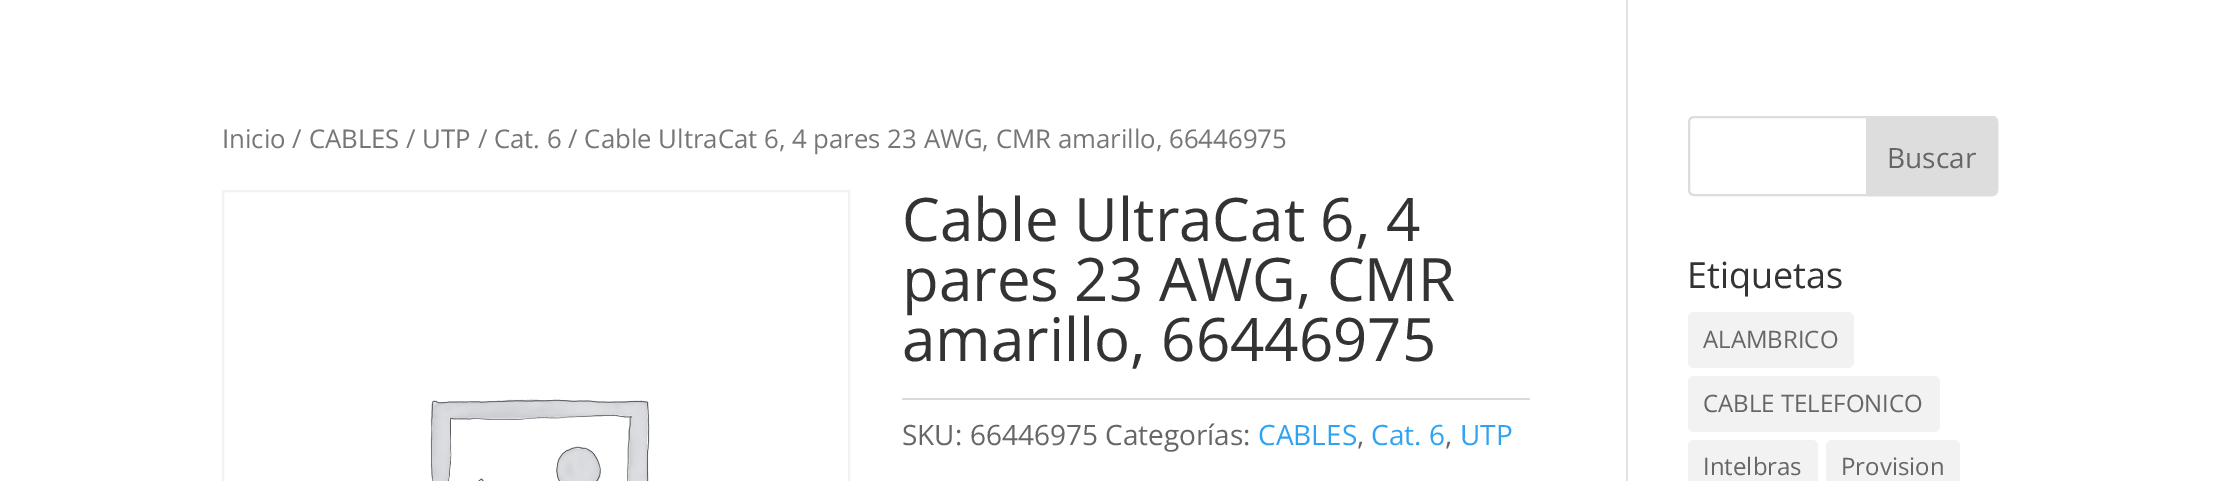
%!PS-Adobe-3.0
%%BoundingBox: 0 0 2219 481
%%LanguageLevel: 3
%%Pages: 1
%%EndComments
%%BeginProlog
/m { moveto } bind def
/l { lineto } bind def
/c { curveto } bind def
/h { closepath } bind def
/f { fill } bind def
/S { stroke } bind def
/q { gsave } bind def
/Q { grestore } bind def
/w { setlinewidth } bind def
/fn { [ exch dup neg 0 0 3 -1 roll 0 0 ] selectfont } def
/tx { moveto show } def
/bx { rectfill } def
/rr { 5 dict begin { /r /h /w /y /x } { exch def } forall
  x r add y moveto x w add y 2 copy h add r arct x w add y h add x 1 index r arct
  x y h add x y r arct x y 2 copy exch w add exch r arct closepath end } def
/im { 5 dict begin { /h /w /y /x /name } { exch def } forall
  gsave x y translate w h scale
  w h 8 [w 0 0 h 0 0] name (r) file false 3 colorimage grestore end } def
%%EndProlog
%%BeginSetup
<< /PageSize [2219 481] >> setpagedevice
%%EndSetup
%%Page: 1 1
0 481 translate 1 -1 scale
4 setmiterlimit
1 setgray
0 0 2219 481 bx
0.886 setgray
1626 0 2 481 bx
/OpenSans-Regular 25.75 fn
0.463 setgray
(Inicio / CABLES / UTP / Cat. 6 / Cable UltraCat 6, 4 pares 23 AWG, CMR amarillo, 66446975) 222 148 tx
0.949 setgray
2 w
223 191 626 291 rectstroke
(image0.raw) 430 399 220 82 im
/OpenSans-Regular 60 fn
0.2 setgray
(Cable UltraCat 6, 4) 902 241 tx
(pares 23 AWG, CMR) 902 301 tx
(amarillo, 66446975) 902 361 tx
0.855 setgray
902 398 628 2 bx
/OpenSans-Regular 28 fn
0.4 setgray
(SKU: 66446975 Categorías:) 902 445 tx
0.18 0.639 0.949 setrgbcolor
(CABLES) 1258 445 tx
0.4 setgray
(,) 1357 445 tx
0.18 0.639 0.949 setrgbcolor
(Cat. 6) 1371 445 tx
0.4 setgray
(,) 1445 445 tx
0.18 0.639 0.949 setrgbcolor
(UTP) 1460 445 tx
0.867 setgray
1689 117 308 78 5 rr S
1867 117 m 1992 117 l 1995 117 1997 119 1997 122 c 1997 190 l 1997 193 1995 195 1992 195 c 1867 195 l h q f Q
S
0.4 setgray
(Buscar) 1887 168 tx
/OpenSans-Regular 36 fn
0.2 setgray
(Etiquetas) 1687 288 tx
0.949 setgray
1688 312 166 56 6 rr f
/OpenSans-Regular 24 fn
0.4 setgray
(ALAMBRICO) 1703 348 tx
0.949 setgray
1688 376 252 56 6 rr f
0.4 setgray
(CABLE TELEFONICO) 1703 412 tx
0.949 setgray
1688 440 130 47 6 rr f
0.4 setgray
(Intelbras) 1703 475 tx
0.949 setgray
1826 440 134 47 6 rr f
0.4 setgray
(Provision) 1841 475 tx
showpage
%%EOF
